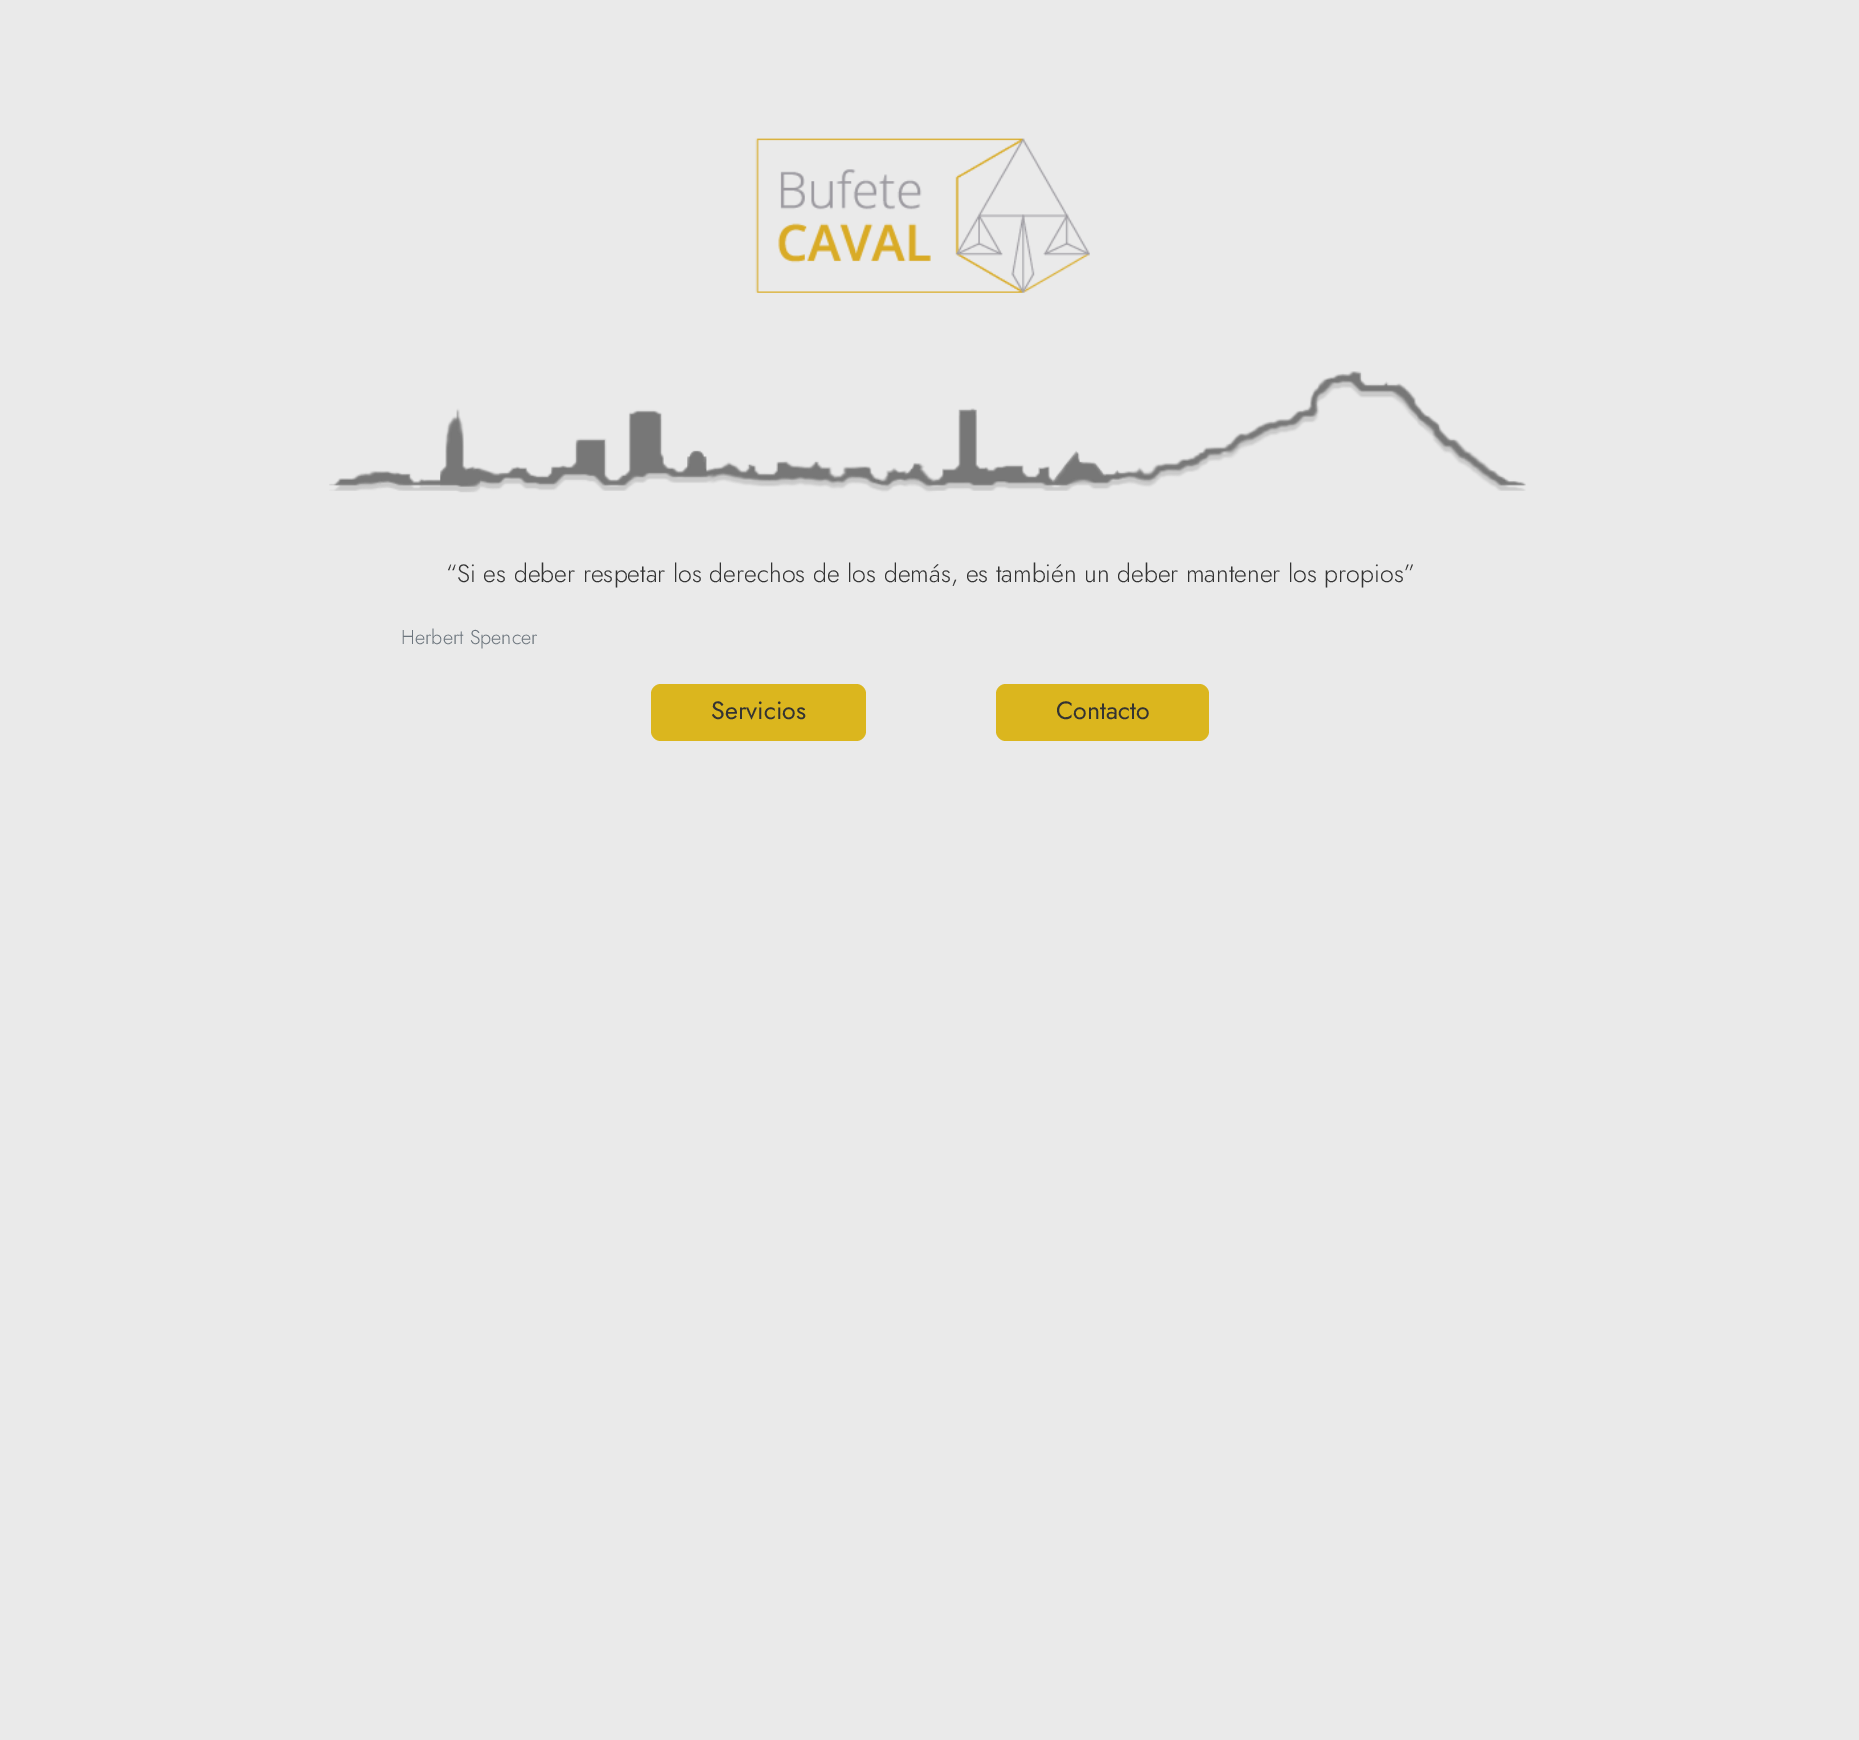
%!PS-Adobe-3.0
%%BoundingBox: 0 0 1859 1740
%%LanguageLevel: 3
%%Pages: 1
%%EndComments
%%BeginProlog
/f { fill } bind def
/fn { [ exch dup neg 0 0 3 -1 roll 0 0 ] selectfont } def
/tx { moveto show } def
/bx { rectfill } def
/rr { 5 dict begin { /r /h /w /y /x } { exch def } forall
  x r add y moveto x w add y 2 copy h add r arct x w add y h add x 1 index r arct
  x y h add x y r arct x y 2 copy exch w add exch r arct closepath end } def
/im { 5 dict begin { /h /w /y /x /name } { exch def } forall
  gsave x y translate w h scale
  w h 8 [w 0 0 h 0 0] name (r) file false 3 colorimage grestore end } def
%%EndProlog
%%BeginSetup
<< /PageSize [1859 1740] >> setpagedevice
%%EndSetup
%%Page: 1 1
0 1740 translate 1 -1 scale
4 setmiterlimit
0.918 setgray
0 0 1859 1740 bx
(image0.raw) 755 138 335 155 im
(image1.raw) 329 371 1197 122 im
/Jost-Light 25 fn
0.2 setgray
(“Si es deber respetar los derechos de los demás, es también un deber mantener los propios”) 446 582 tx
/Jost-Light 20 fn
0.424 0.459 0.49 setrgbcolor
(Herbert Spencer) 401 644 tx
0.859 0.714 0.118 setrgbcolor
651 684 215 57 10 rr f
/Jost-Regular 25 fn
0.2 setgray
(Servicios) 711 719 tx
0.859 0.714 0.118 setrgbcolor
996 684 213 57 10 rr f
0.2 setgray
(Contacto) 1056 719 tx
showpage
%%EOF
